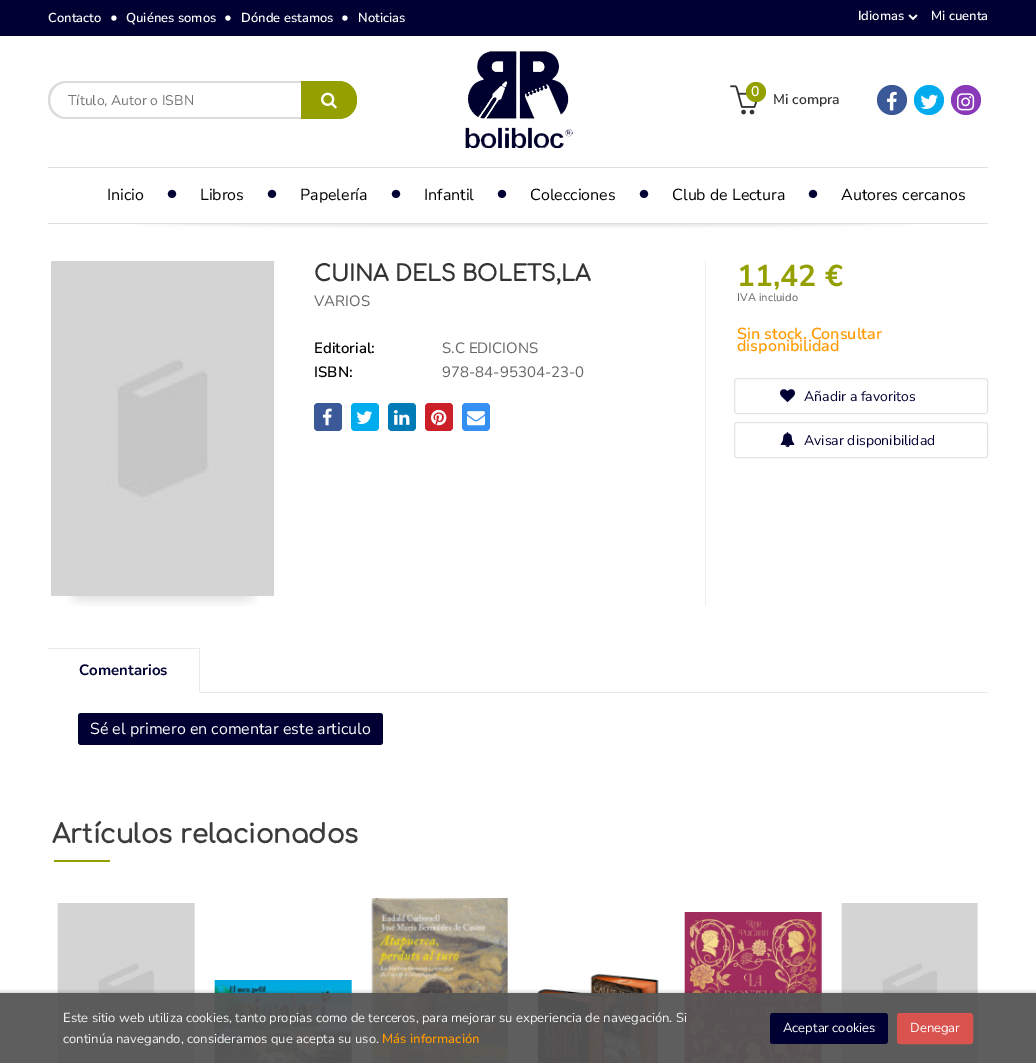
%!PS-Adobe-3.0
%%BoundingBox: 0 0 1036 1063
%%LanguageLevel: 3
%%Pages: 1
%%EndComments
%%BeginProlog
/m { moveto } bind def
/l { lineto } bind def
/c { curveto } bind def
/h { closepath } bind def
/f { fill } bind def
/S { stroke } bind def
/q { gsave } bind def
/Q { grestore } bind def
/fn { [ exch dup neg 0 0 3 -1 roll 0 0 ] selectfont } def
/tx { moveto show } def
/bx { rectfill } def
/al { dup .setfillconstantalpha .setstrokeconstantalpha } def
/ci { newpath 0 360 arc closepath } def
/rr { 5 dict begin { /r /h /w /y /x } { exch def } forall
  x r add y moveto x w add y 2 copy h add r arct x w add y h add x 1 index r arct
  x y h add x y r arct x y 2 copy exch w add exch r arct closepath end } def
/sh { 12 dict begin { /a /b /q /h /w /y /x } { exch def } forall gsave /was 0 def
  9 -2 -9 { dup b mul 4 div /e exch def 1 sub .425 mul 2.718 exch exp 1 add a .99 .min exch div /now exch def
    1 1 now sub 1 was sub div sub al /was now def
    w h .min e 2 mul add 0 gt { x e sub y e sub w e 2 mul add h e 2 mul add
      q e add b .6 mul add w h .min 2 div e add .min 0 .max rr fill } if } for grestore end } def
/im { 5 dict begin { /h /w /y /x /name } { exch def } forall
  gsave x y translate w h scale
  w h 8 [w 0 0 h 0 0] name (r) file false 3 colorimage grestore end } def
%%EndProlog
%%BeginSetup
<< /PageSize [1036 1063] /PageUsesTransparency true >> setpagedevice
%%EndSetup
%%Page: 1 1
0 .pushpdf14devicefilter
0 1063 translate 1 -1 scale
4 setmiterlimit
1 setgray
0 0 1036 1063 bx
0 0 0.196 setrgbcolor
0 0 1036 36 bx
/NunitoSans-SemiBold 13 fn
1 setgray
(Contacto) 48 22 tx
/NunitoSans-SemiBold 15 fn
(•) 110 22 tx
/NunitoSans-SemiBold 13 fn
(Quiénes somos) 126 22 tx
/NunitoSans-SemiBold 15 fn
(•) 224 22 tx
/NunitoSans-SemiBold 13 fn
(Dónde estamos) 241 22 tx
/NunitoSans-SemiBold 15 fn
(•) 341 22 tx
/NunitoSans-SemiBold 13 fn
(Noticias) 358 22 tx
(Idiomas) 858 20 tx
(image0.raw) 908 14 10 7 im
(Mi cuenta) 931 20 tx
0.863 setgray
66 81 m 301 81 l 301 119 l 66 119 l 56 119 48 111 48 101 c 48 99 l 48 89 56 81 66 81 c h 66 83 m 301 83 l 301 117 l 63 117 l 59 116 55 113 53 110 c 46 99 53 83 66 83 c h eofill
/NunitoSans-Regular 14 fn
0.459 setgray
(Título, Autor o ISBN) 68 105 tx
0.58 0.624 0 setrgbcolor
301 81 m 339 81 l 349 81 357 89 357 99 c 357 101 l 357 111 349 119 339 119 c 301 119 l h f
(image1.raw) 321 92 16 17 im
(image2.raw) 465 51 108 98 im
(image3.raw) 730 85 28 30 im
756 92 10 ci f
/NunitoSans-SemiBold 14 fn
1 setgray
(0) 751 96 tx
0.2 setgray
(Mi compra) 773 104 tx
0.231 0.349 0.596 setrgbcolor
892 100 15 ci f
(image4.raw) 887 91 10 20 im
0 0.675 0.929 setrgbcolor
929 100 15 ci f
(image5.raw) 920 94 18 15 im
0.541 0.227 0.725 setrgbcolor
966 100 15 ci f
(image6.raw) 957 93 18 18 im
(image7.raw) 138 224 775 4 im
0.882 0.878 0.878 setrgbcolor
48 167 940 1 bx
48 223 940 1 bx
/NunitoSans-Regular 16 fn
0 setgray
(Inicio) 107 200 tx
/NunitoSans-Regular 23 fn
0 0 0.196 setrgbcolor
(•) 166 200 tx
/NunitoSans-Regular 16 fn
0 setgray
(Libros) 200 200 tx
/NunitoSans-Regular 23 fn
0 0 0.196 setrgbcolor
(•) 266 200 tx
/NunitoSans-Regular 16 fn
0 setgray
(Papelería) 300 200 tx
/NunitoSans-Regular 23 fn
0 0 0.196 setrgbcolor
(•) 390 200 tx
/NunitoSans-Regular 16 fn
0 setgray
(Infantil) 424 200 tx
/NunitoSans-Regular 23 fn
0 0 0.196 setrgbcolor
(•) 496 200 tx
/NunitoSans-Regular 16 fn
0 setgray
(Colecciones) 530 200 tx
/NunitoSans-Regular 23 fn
0 0 0.196 setrgbcolor
(•) 638 200 tx
/NunitoSans-Regular 16 fn
0 setgray
(Club de Lectura) 672 200 tx
/NunitoSans-Regular 23 fn
0 0 0.196 setrgbcolor
(•) 807 200 tx
/NunitoSans-Regular 16 fn
0 setgray
(Autores cercanos) 841 200 tx
0.933 setgray
705 261 1 345 bx
(image8.raw) 51 261 223 335 im
(image9.raw) 67 596 192 10 im
/Comfortaa-Bold 22 fn
0.2 setgray
(CUINA DELS BOLETS,LA) 314 281 tx
/NunitoSans-Regular 15 fn
0.4 setgray
(VARIOS) 314 306 tx
/NunitoSans-SemiBold 15 fn
0 setgray
(Editorial:) 314 353 tx
/NunitoSans-Regular 15 fn
0.4 setgray
(S.C EDICIONS) 442 353 tx
/NunitoSans-SemiBold 15 fn
0 setgray
(ISBN:) 314 377 tx
/NunitoSans-Regular 15 fn
0.4 setgray
(978-84-95304-23-0) 442 377 tx
0.231 0.349 0.596 setrgbcolor
314 403 28 28 4 rr f
(image10.raw) 322 408 10 18 im
0 0.675 0.929 setrgbcolor
351 403 28 28 4 rr f
(image11.raw) 356 411 17 13 im
0 0.482 0.714 setrgbcolor
388 403 28 28 4 rr f
(image12.raw) 394 410 16 15 im
0.796 0.125 0.153 setrgbcolor
425 403 28 28 4 rr f
(image13.raw) 431 409 16 17 im
0.204 0.565 0.953 setrgbcolor
462 403 28 28 4 rr f
(image14.raw) 467 411 18 15 im
/NunitoSans-Bold 30 fn
0.58 0.624 0 setrgbcolor
(11,42 €) 737 286 tx
/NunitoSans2-Regular 11 fn
0.4 setgray
(IVA incluido) 737 301 tx
/NunitoSans-SemiBold 16 fn
1 0.6 0 setrgbcolor
(Sin stock. Consultar) 737 339 tx
(disponibilidad) 737 351 tx
0.89 setgray
734.5 378.5 253 35 2.5 rr S
(image15.raw) 780 389 15 13 im
/NunitoSans-Regular 14 fn
0 0 0.196 setrgbcolor
(Añadir a favoritos) 804 401 tx
0.89 setgray
734.5 422.5 253 35 2.5 rr S
(image16.raw) 780 432 15 16 im
0 0 0.196 setrgbcolor
(Avisar disponibilidad) 804 445 tx
0.918 setgray
200 692 788 1 bx
48 648 152 1 bx
199 648 1 45 bx
0.992 setgray
199 692 1 1 bx
/NunitoSans-Bold 15 fn
0 0 0.196 setrgbcolor
(Comentarios) 79 675 tx
78 713 305 32 3 rr f
/NunitoSans-Regular 16 fn
1 setgray
(Sé el primero en comentar este articulo) 90 734 tx
/Comfortaa-Bold 26 fn
0.235 setgray
(Artículos relacionados) 52 843 tx
0.58 0.624 0 setrgbcolor
54 860 56 2 bx
(image17.raw) 57 903 138 160 im
(image18.raw) 214 980 138 83 im
(image19.raw) 371 898 137 165 im
(image20.raw) 537 973 122 90 im
(image21.raw) 684 912 138 151 im
(image22.raw) 841 903 137 160 im
q
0 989 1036 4 rectclip
0 setgray
0 993 1036 70 0 2.5 0.3 sh
Q
0.95 al
0.333 setgray
0 993 1036 70 bx
/NunitoSans-Regular 13 fn
1 al
0.949 setgray
(Este sitio web utiliza cookies, tanto propias como de terceros, para mejorar su experiencia de navegación. Si) 63 1022 tx
(continúa navegando, consideramos que acepta su uso.) 63 1043 tx
/NunitoSans-SemiBold 13 fn
1 0.6 0 setrgbcolor
(Más información) 382 1043 tx
0 0 0.196 setrgbcolor
770 1013 118 31 3 rr f
/NunitoSans-Regular 13 fn
1 setgray
(Aceptar cookies) 783 1032 tx
0.851 0.325 0.31 setrgbcolor
897.5 1013.5 75 30 2.5 rr q f Q
S
1 setgray
(Denegar) 910 1032 tx
.poppdf14devicefilter showpage
%%EOF
